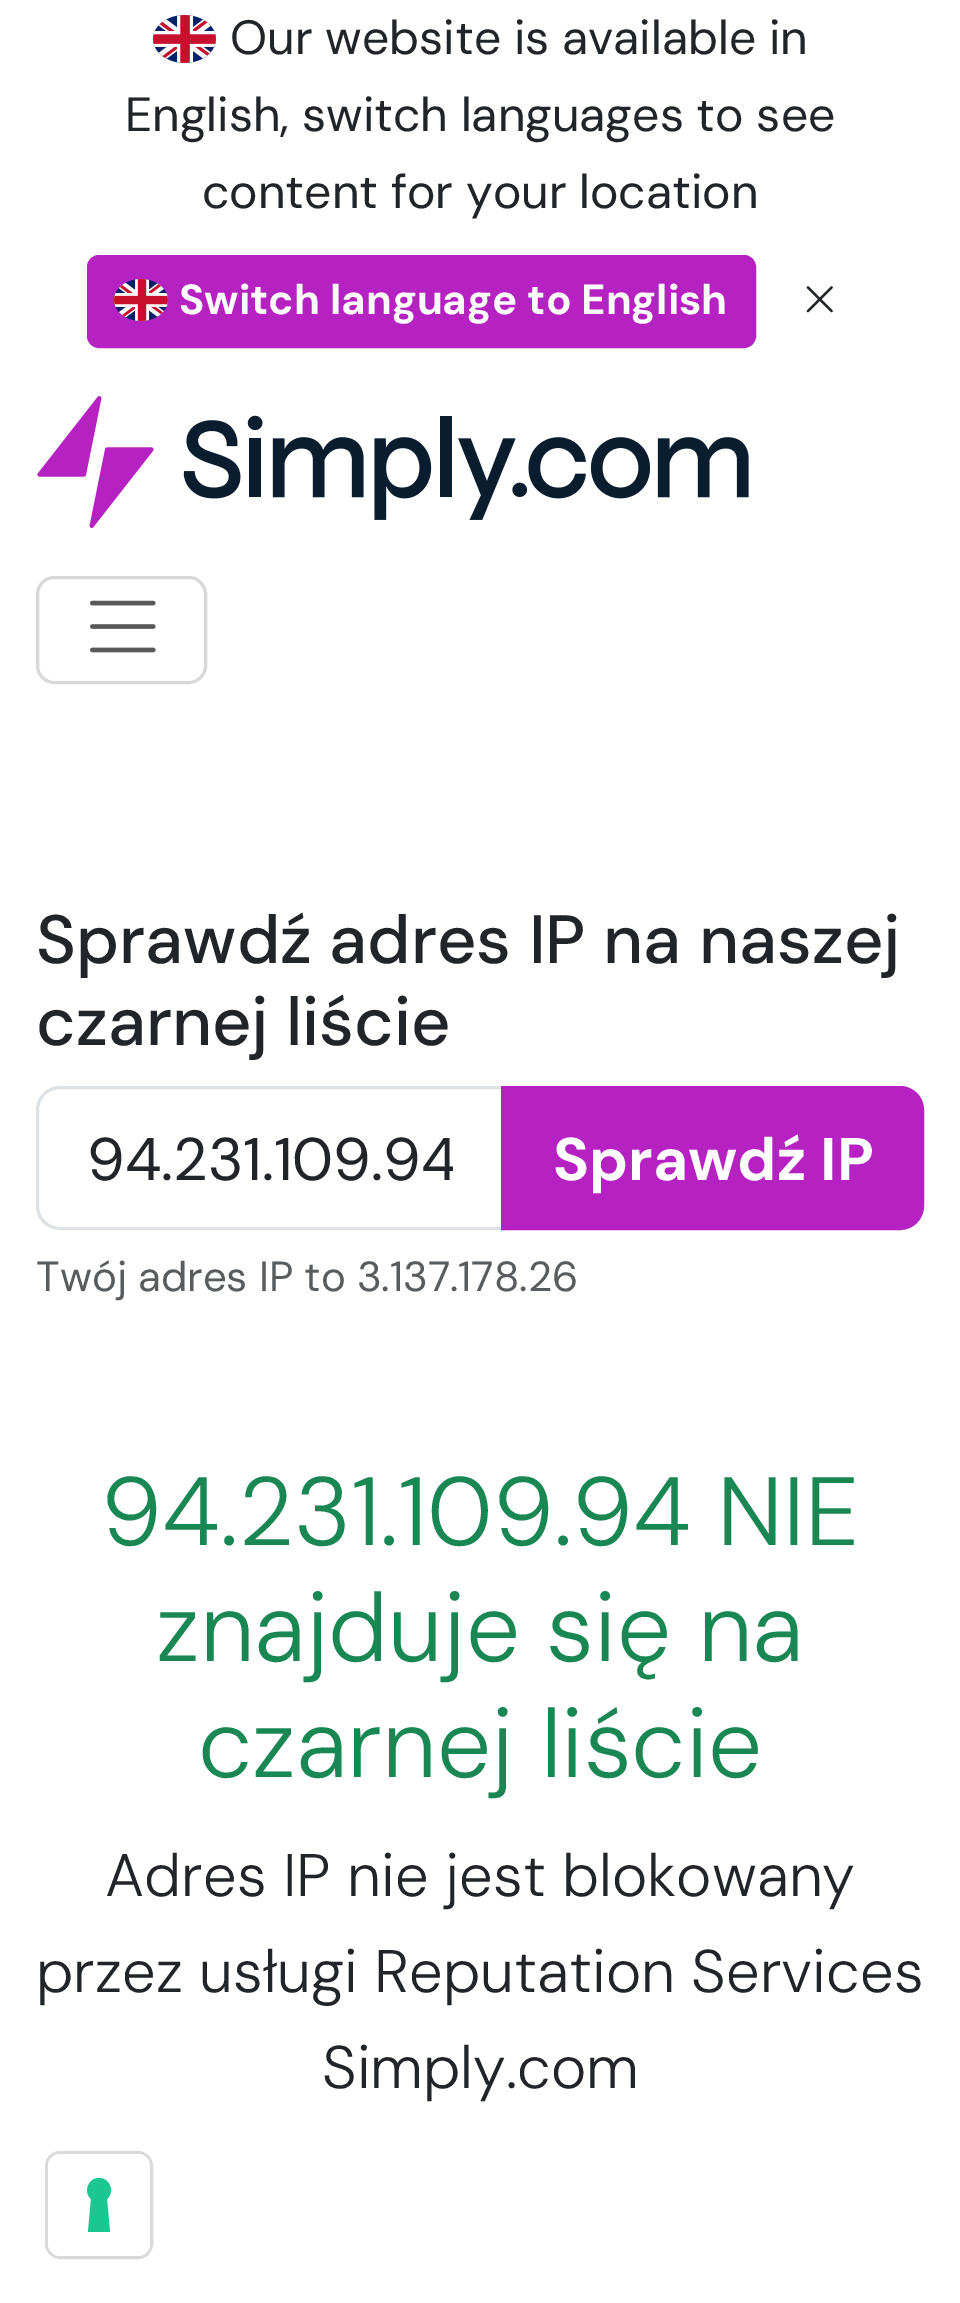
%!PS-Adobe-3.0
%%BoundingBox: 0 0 960 2303
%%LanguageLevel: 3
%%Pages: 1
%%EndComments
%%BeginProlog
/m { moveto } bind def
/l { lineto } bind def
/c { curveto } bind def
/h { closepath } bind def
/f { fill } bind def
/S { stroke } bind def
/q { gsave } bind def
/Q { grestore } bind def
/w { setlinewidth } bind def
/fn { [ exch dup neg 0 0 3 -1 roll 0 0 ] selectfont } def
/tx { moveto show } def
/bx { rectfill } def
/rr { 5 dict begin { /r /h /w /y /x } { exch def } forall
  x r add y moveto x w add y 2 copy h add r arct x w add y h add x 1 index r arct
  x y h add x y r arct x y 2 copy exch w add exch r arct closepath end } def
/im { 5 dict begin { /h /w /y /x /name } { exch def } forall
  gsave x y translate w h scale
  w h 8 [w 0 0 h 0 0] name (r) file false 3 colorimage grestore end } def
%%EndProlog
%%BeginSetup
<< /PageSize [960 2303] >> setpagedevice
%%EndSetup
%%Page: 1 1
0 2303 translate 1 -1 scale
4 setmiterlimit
1 setgray
0 0 960 2303 bx
(image0.raw) 153 15 63 48 im
/DMSans-Regular 48 fn
0.129 0.145 0.161 setrgbcolor
(Our website is available in) 230 54 tx
(English, switch languages to see) 125 131 tx
(content for your location) 202 208 tx
0.71 0.133 0.757 setrgbcolor
88.5 256.5 666 90 10.5 rr q f Q
3 w
S
(image1.raw) 114 279 54 42 im
/DMSans-Bold 42 fn
1 setgray
(Switch language to English) 179 314 tx
(image2.raw) 806 286 27 27 im
(image3.raw) 37 396 712 132 im
0.851 setgray
37.5 577.5 168 105 16.5 rr S
(image4.raw) 90 600 66 53 im
/DMSans-Medium 68.2 fn
0.129 0.145 0.161 setrgbcolor
(Sprawdź adres IP na naszej) 36 963 tx
(czarnej liście) 36 1045 tx
0.871 0.886 0.902 setrgbcolor
60 1087.5 m 502.5 1087.5 l 502.5 1228.5 l 60 1228.5 l 47.5 1228.5 37.5 1218.5 37.5 1206 c 37.5 1110 l 37.5 1097.5 47.5 1087.5 60 1087.5 c h S
q
87 1113 366 90 rectclip
/DMSans-Regular 60 fn
0.129 0.145 0.161 setrgbcolor
(94.231.109.94) 87 1180 tx
Q
0.71 0.133 0.757 setrgbcolor
502.5 1087.5 m 900 1087.5 l 912.5 1087.5 922.5 1097.5 922.5 1110 c 922.5 1206 l 922.5 1218.5 912.5 1228.5 900 1228.5 c 502.5 1228.5 l h q f Q
S
/DMSans-Bold 60 fn
1 setgray
(Sprawdź IP) 553 1180 tx
/DMSans-Regular 42 fn
0.349 0.361 0.373 setrgbcolor
(Twój adres IP to 3.137.178.26) 36 1291 tx
/DMSans-Light 96.75 fn
0.098 0.529 0.329 setrgbcolor
(94.231.109.94 NIE) 101 1545 tx
(znajduje się na) 156 1661 tx
(czarnej liście) 198 1777 tx
/DMSans-Light 60 fn
0.129 0.145 0.161 setrgbcolor
(Adres IP nie jest blokowany) 105 1896 tx
(przez usługi Reputation Services) 36 1992 tx
(Simply.com) 322 2088 tx
0.851 setgray
46.5 2152.5 105 105 13.5 rr S
1 setgray
48 2154 102 102 12 rr f
0.11 0.776 0.569 setrgbcolor
99 2178 m 110 2178 115 2192 107 2199 c 110 2232 l 88 2232 l 91 2199 l 83 2192 88 2178 99 2178 c h eofill
showpage
%%EOF
